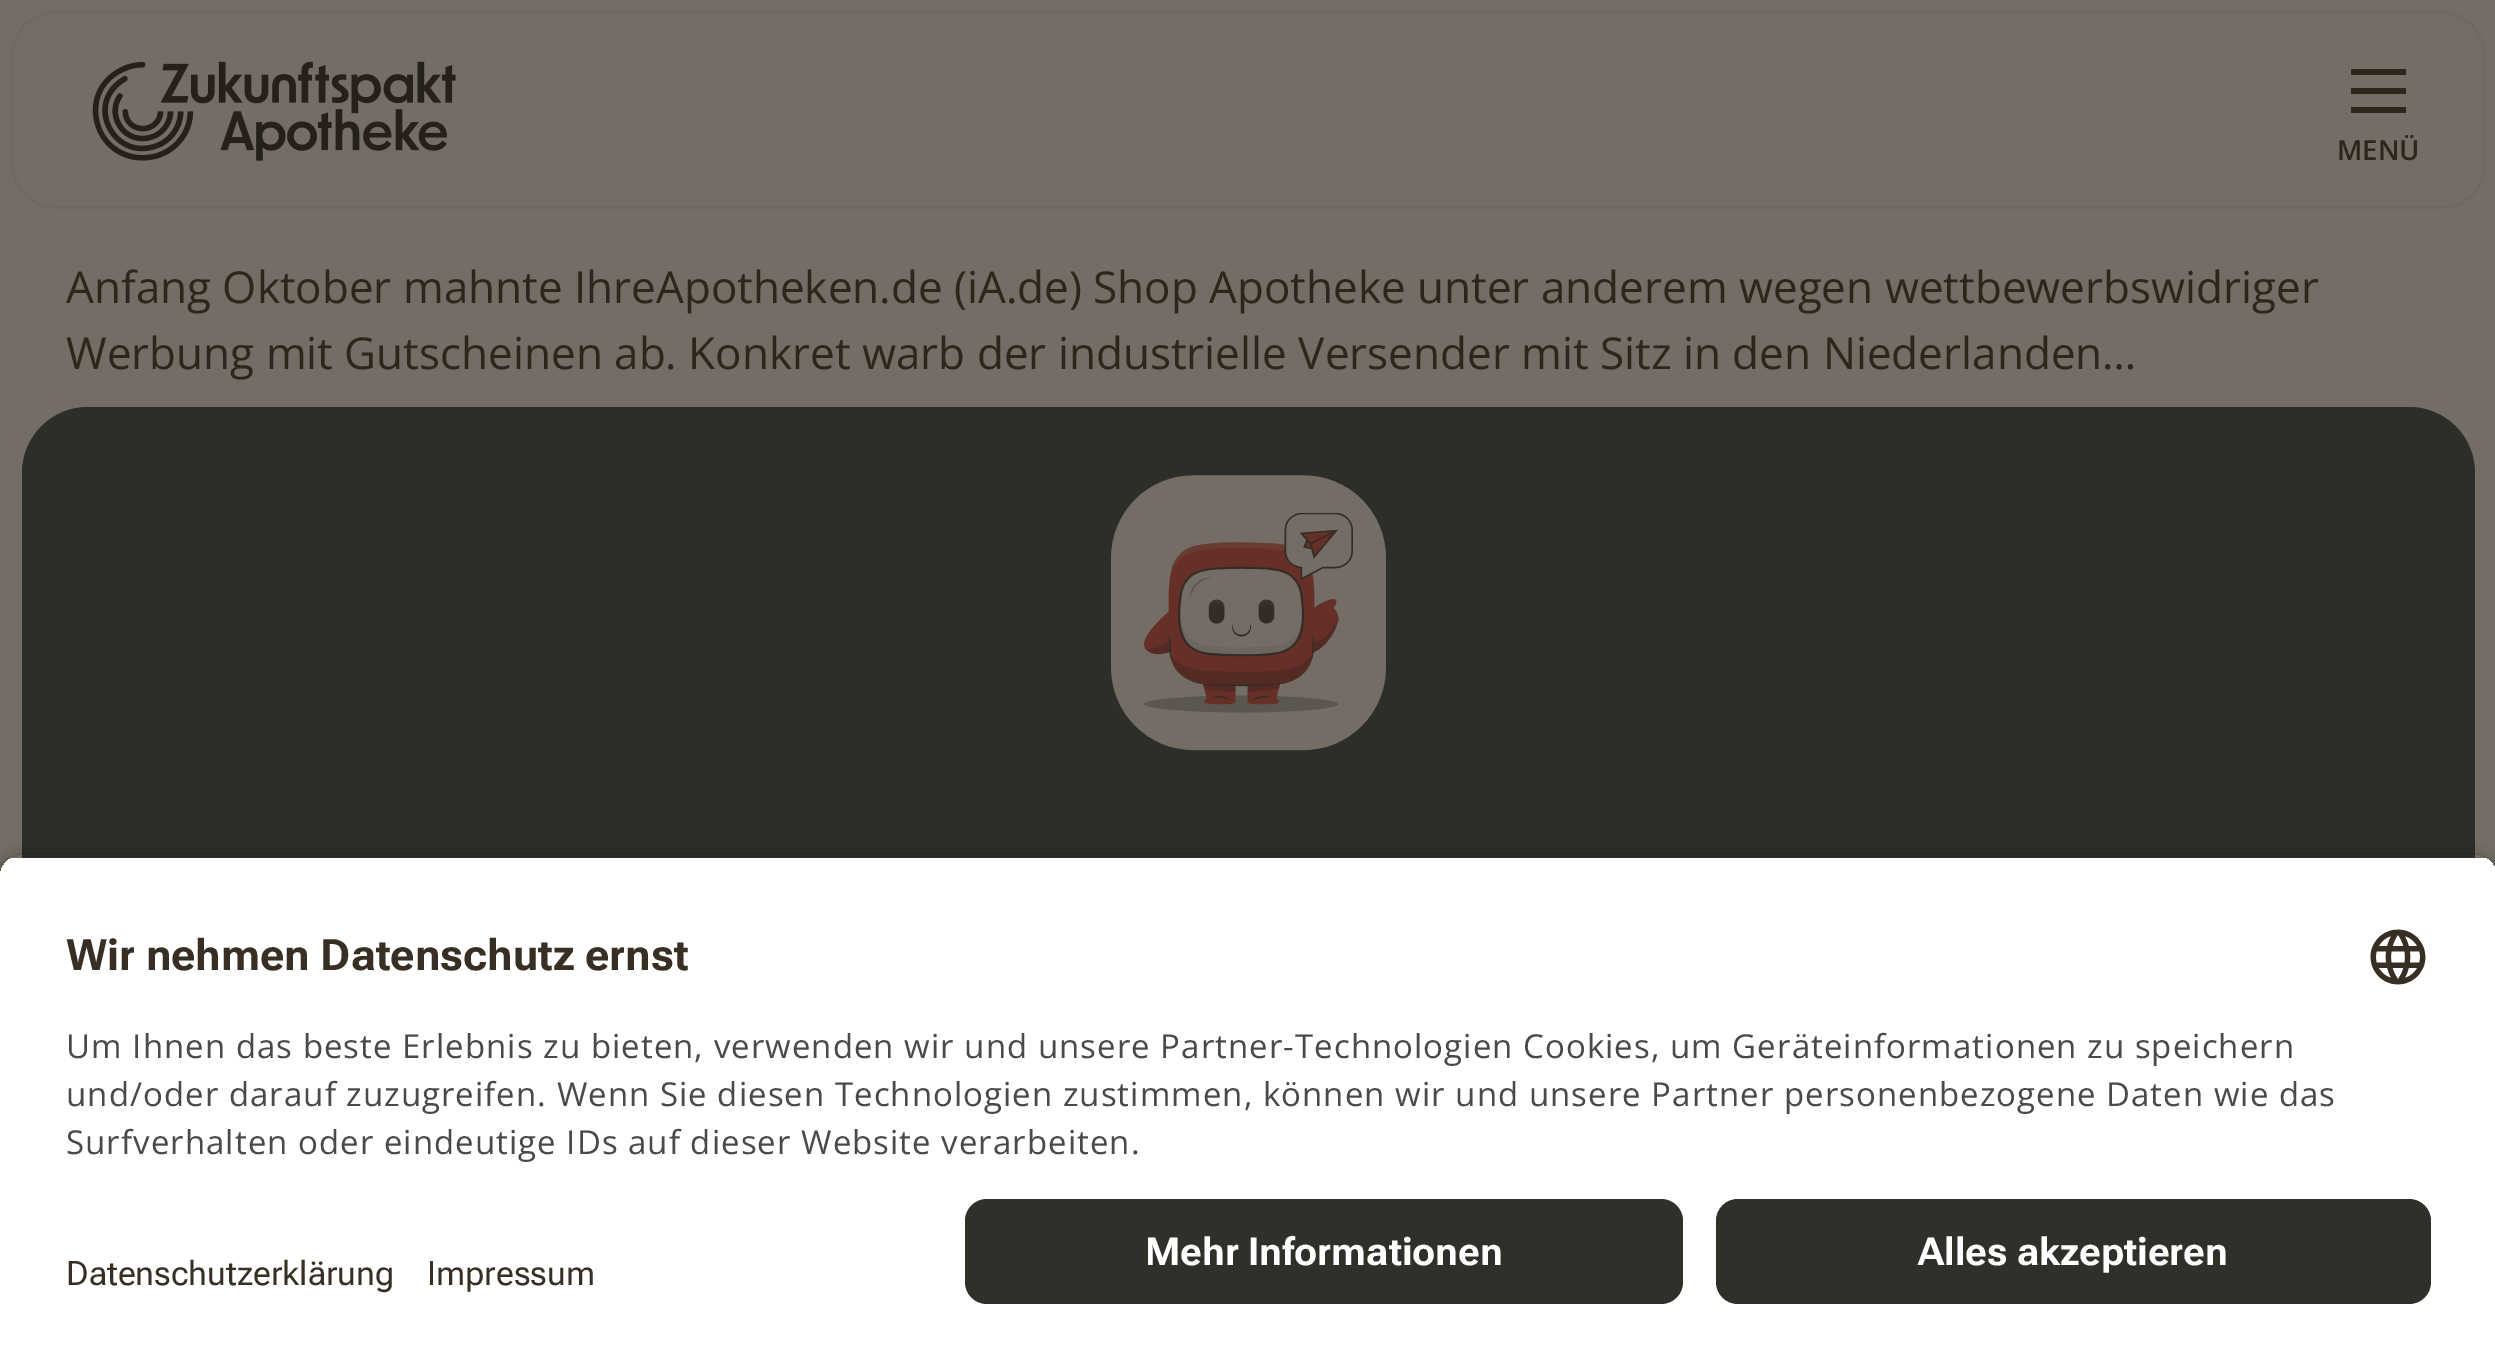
%!PS-Adobe-3.0
%%BoundingBox: 0 0 2495 1367
%%LanguageLevel: 3
%%Pages: 1
%%EndComments
%%BeginProlog
/m { moveto } bind def
/l { lineto } bind def
/c { curveto } bind def
/h { closepath } bind def
/f { fill } bind def
/S { stroke } bind def
/q { gsave } bind def
/Q { grestore } bind def
/w { setlinewidth } bind def
/fn { [ exch dup neg 0 0 3 -1 roll 0 0 ] selectfont } def
/tx { moveto show } def
/bx { rectfill } def
/al { dup .setfillconstantalpha .setstrokeconstantalpha } def
/rr { 5 dict begin { /r /h /w /y /x } { exch def } forall
  x r add y moveto x w add y 2 copy h add r arct x w add y h add x 1 index r arct
  x y h add x y r arct x y 2 copy exch w add exch r arct closepath end } def
/sh { 12 dict begin { /a /b /q /h /w /y /x } { exch def } forall gsave /was 0 def
  9 -2 -9 { dup b mul 4 div /e exch def 1 sub .425 mul 2.718 exch exp 1 add a .99 .min exch div /now exch def
    1 1 now sub 1 was sub div sub al /was now def
    w h .min e 2 mul add 0 gt { x e sub y e sub w e 2 mul add h e 2 mul add
      q e add b .6 mul add w h .min 2 div e add .min 0 .max rr fill } if } for grestore end } def
/im { 5 dict begin { /h /w /y /x /name } { exch def } forall
  gsave x y translate w h scale
  w h 8 [w 0 0 h 0 0] name (r) file false 3 colorimage grestore end } def
%%EndProlog
%%BeginSetup
<< /PageSize [2495 1367] /PageUsesTransparency true >> setpagedevice
%%EndSetup
%%Page: 1 1
0 .pushpdf14devicefilter
0 1367 translate 1 -1 scale
4 setmiterlimit
0.451 0.427 0.396 setrgbcolor
0 0 2495 1367 bx
0.435 0.416 0.38 setrgbcolor
3 w
12.5 12.5 2472 195 42.5 rr S
(image0.raw) 92 61 364 100 im
0.173 0.149 0.114 setrgbcolor
2351 69 55 6 bx
2351 88 55 6 bx
2351 107 55 6 bx
/OpenSans-SemiBold 27.5 fn
(MENÜ) 2337 160 tx
/OpenSans-Regular 44 fn
(Anfang Oktober mahnte IhreApotheken.de \(iA.de\) Shop Apotheke unter anderem wegen wettbewerbswidriger) 66 303 tx
(Werbung mit Gutscheinen ab. Konkret warb der industrielle Versender mit Sitz in den Niederlanden…) 66 369 tx
0.173 0.18 0.165 setrgbcolor
88 407 m 2409 407 l 2445.5 407 2475 436.5 2475 473 c 2475 1279 l 22 1279 l 22 473 l 22 436.5 51.5 407 88 407 c h f
(image1.raw) 1111 475 275 276 im
q
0 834 m 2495 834 l 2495 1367 l 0 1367 l h 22 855 m 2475 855 l 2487 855 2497 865 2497 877 c 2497 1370 l 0 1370 l 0 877 l 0 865 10 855 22 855 c h eoclip newpath
0 setgray
0 864 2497 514 22 9.5 0.8 sh
Q
q
22 855 m 2475 855 l 2487 855 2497 865 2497 877 c 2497 1177 l 0 1177 l 0 877 l 0 865 10 855 22 855 c h clip newpath
1 setgray
0 858 2495 319 bx
Q
/RobotoFlex-Bold 43.25 fn
0.216 0.184 0.137 setrgbcolor
(Wir nehmen Datenschutz ernst) 66 970 tx
(image2.raw) 2370 929 56 56 im
/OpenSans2-Regular 33 fn
0.29 0.286 0.286 setrgbcolor
66 1058 m 1.04 0 (Um Ihnen das beste Erlebnis zu bieten, verwenden wir und unsere Partner-Technologien Cookies, um Geräteinformationen zu speichern) ashow
66 1106 m 1.04 0 (und/oder darauf zuzugreifen. Wenn Sie diesen Technologien zustimmen, können wir und unsere Partner personenbezogene Daten wie das) ashow
66 1154 m 1.04 0 (Surfverhalten oder eindeutige IDs auf dieser Website verarbeiten.) ashow
1 setgray
0 1177 2495 190 bx
/RobotoFlex-Regular 33.75 fn
0.216 0.184 0.137 setrgbcolor
(Datenschutzerklärung) 66 1285 tx
(Impressum) 427 1285 tx
0.192 0.184 0.165 setrgbcolor
965 1199 718 105 22 rr f
/RobotoFlex-Bold 38.5 fn
1 setgray
(Mehr Informationen) 1145 1265 tx
0.192 0.184 0.165 setrgbcolor
1716 1199 715 105 22 rr f
1 setgray
(Alles akzeptieren) 1918 1265 tx
.poppdf14devicefilter showpage
%%EOF
